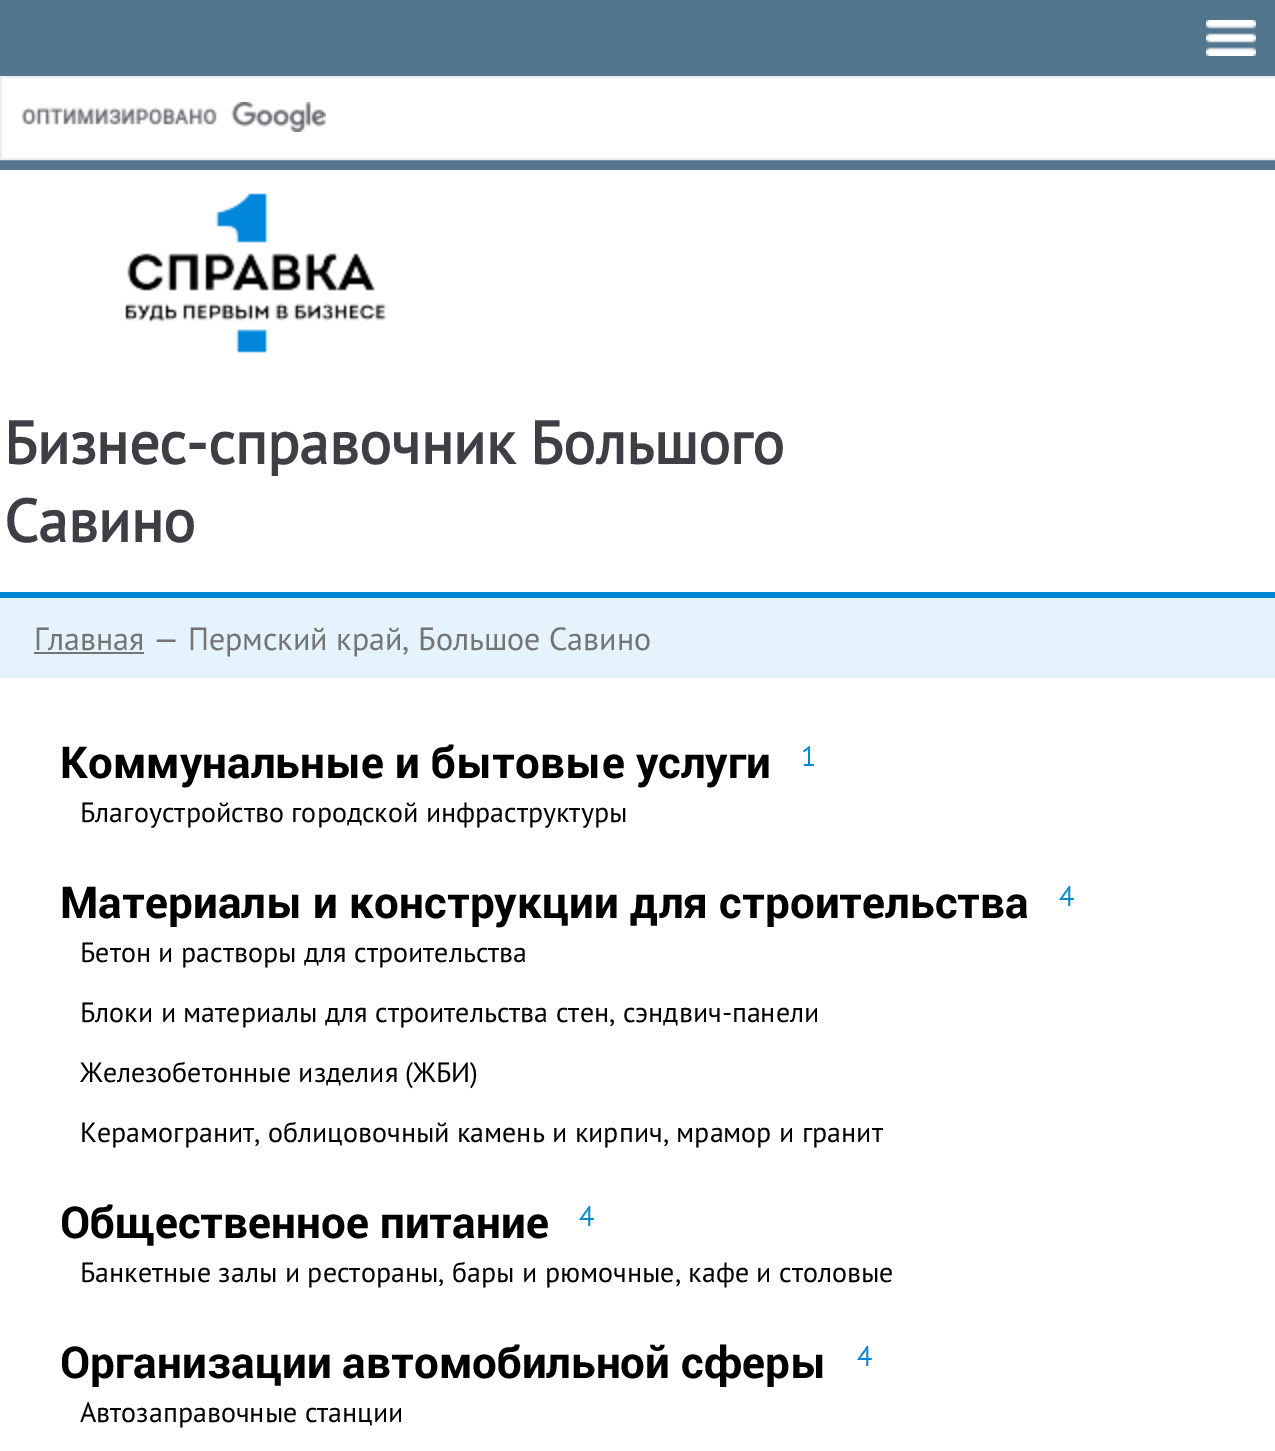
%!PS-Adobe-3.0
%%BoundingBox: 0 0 1275 1451
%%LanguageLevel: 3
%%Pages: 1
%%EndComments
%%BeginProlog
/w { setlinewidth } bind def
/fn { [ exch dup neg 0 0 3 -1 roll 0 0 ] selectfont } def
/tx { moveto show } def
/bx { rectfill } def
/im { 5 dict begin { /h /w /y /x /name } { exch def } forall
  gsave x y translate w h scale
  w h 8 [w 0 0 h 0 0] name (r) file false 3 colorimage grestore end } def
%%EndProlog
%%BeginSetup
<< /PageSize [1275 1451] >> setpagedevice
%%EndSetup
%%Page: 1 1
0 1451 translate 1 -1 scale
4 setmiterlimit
1 setgray
0 0 1275 1451 bx
0.325 0.459 0.557 setrgbcolor
0 0 1275 170 bx
(image0.raw) 1206 20 50 36 im
0.925 setgray
2 w
1 77 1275 82 rectstroke
1 setgray
2 78 1273 80 bx
(image1.raw) 22 102 304 30 im
0 0.525 0.843 setrgbcolor
0 592 1275 6 bx
(image2.raw) 125 193 262 160 im
/PTSans-Bold 60 fn
0.239 0.247 0.271 setrgbcolor
(Бизнес-справочник Большого) 4 464 tx
(Савино) 4 542 tx
0.894 0.953 0.988 setrgbcolor
0 598 1275 80 bx
0.455 setgray
34 652 110 2 bx
/PTSans-Regular 32 fn
(Главная — Пермский край, Большое Савино) 34 650 tx
/Roboto-Bold 44 fn
0 setgray
(Коммунальные и бытовые услуги) 60 778 tx
/PTSans-Regular 28 fn
0 0.525 0.843 setrgbcolor
(1) 801 766 tx
0 setgray
(Благоустройство городской инфраструктуры) 80 822 tx
/Roboto-Bold 44 fn
(Материалы и конструкции для строительства) 60 918 tx
/PTSans-Regular 28 fn
0 0.525 0.843 setrgbcolor
(4) 1059 906 tx
0 setgray
(Бетон и растворы для строительства) 80 962 tx
(Блоки и материалы для строительства стен, сэндвич-панели) 80 1022 tx
(Железобетонные изделия \(ЖБИ\)) 80 1082 tx
(Керамогранит, облицовочный камень и кирпич, мрамор и гранит) 80 1142 tx
/Roboto-Bold 44 fn
(Общественное питание) 60 1238 tx
/PTSans-Regular 28 fn
0 0.525 0.843 setrgbcolor
(4) 579 1226 tx
0 setgray
(Банкетные залы и рестораны, бары и рюмочные, кафе и столовые) 80 1282 tx
/Roboto-Bold 44 fn
(Организации автомобильной сферы) 60 1378 tx
/PTSans-Regular 28 fn
0 0.525 0.843 setrgbcolor
(4) 857 1366 tx
0 setgray
(Автозаправочные станции) 80 1422 tx
showpage
%%EOF
